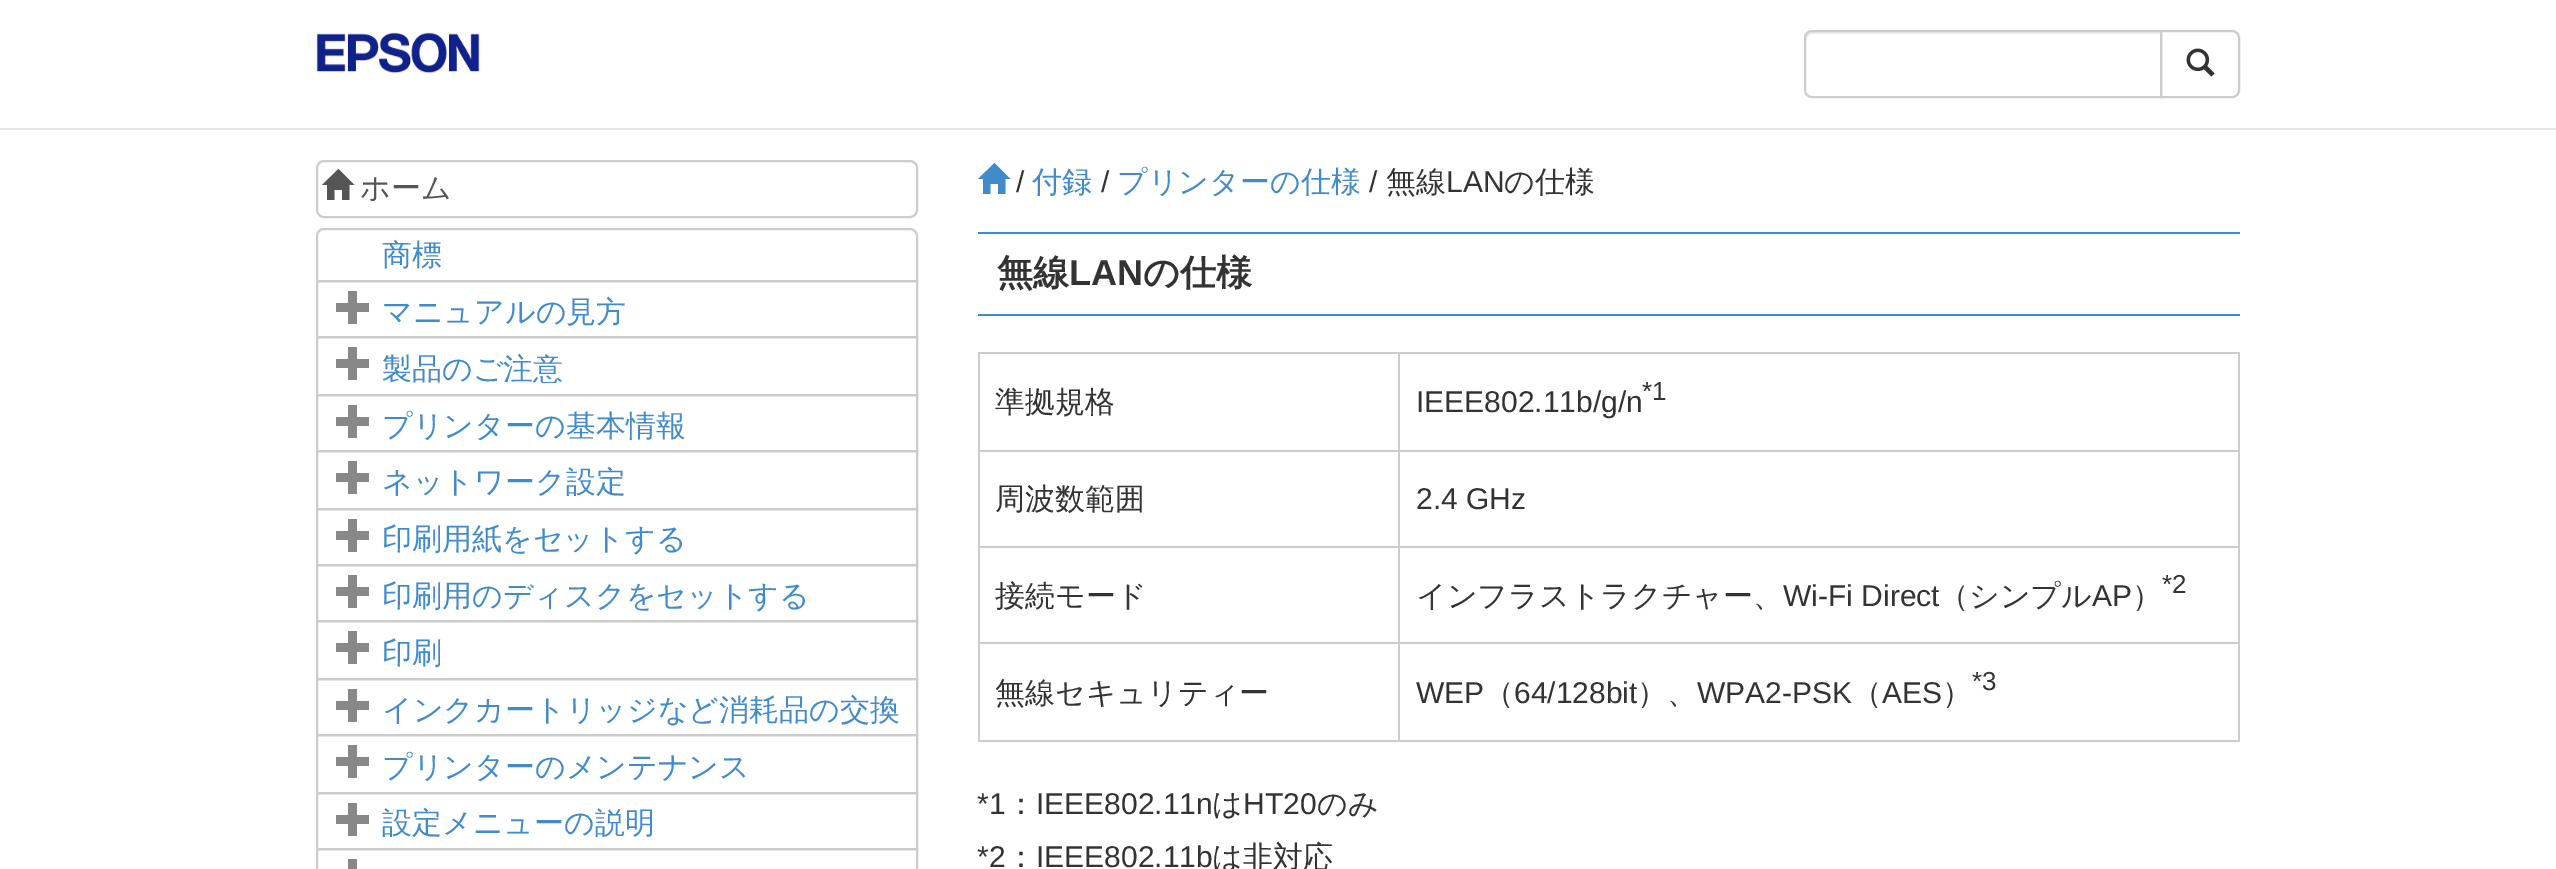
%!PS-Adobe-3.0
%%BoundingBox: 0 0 2556 869
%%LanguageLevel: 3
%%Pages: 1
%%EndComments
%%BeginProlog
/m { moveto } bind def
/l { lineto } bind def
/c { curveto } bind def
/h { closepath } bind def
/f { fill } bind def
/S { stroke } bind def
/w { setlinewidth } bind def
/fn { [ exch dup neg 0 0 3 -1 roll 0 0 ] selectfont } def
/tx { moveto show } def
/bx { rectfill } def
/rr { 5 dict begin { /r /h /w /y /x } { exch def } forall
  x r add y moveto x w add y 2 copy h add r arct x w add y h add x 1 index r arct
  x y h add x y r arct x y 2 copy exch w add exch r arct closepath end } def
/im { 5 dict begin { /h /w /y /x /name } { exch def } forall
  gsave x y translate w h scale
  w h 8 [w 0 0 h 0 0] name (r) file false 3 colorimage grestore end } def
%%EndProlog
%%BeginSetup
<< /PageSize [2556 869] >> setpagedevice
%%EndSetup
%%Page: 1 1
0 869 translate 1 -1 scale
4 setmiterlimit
1 setgray
0 0 2556 869 bx
0.906 setgray
0 128 2556 2 bx
(image0.raw) 316 32 164 42 im
0.8 setgray
2 w
2161 31 m 2232 31 l 2236 31 2239 34 2239 38 c 2239 90 l 2239 94 2236 97 2232 97 c 2161 97 l h S
1 setgray
1812 30 m 2162 30 l 2162 98 l 1812 98 l 1807.5 98 1804 94.5 1804 90 c 1804 38 l 1804 33.5 1807.5 30 1812 30 c h f
0.925 setgray
1812 34 m 2160 34 l 2160 32 l 1812 32 l 1809 32 1806 35 1806 38 c 1806 40 l 1806 37 1809 34 1812 34 c h f
0.8 setgray
1812 31 m 2161 31 l 2161 97 l 1812 97 l 1808 97 1805 94 1805 90 c 1805 38 l 1805 34 1808 31 1812 31 c h S
(image1.raw) 2186 48 29 29 im
317 161 600 56 7 rr S
0.333 setgray
322 185 m 338.5 169 l 354.5 185 l 349.5 185 l 349.5 200 l 342 200 l 342 190 l 334.5 190 l 334.5 200 l 327 200 l 327 185 l h f
/WenQuanYiZenHei-Medium 30 fn
(ホーム) 360 198 tx
0.8 setgray
324 229 m 910 229 l 914 229 917 232 917 236 c 917 281 l 317 281 l 317 236 l 317 232 320 229 324 229 c h S
0.259 0.545 0.792 setrgbcolor
(商標) 382 265 tx
0.8 setgray
317 281 600 56 rectstroke
0.533 setgray
336 312 m 336 303 l 348 303 l 348 291 l 357 291 l 357 303 l 369 303 l 369 312 l 357 312 l 357 324 l 348 324 l 348 312 l h f
0.259 0.545 0.792 setrgbcolor
(マニュアルの見方) 382 322 tx
0.8 setgray
317 337 600 58 rectstroke
0.533 setgray
336 368 m 336 359 l 348 359 l 348 347 l 357 347 l 357 359 l 369 359 l 369 368 l 357 368 l 357 380 l 348 380 l 348 368 l h f
0.259 0.545 0.792 setrgbcolor
(製品のご注意) 382 379 tx
0.8 setgray
317 395 600 56 rectstroke
0.533 setgray
336 426 m 336 417 l 348 417 l 348 405 l 357 405 l 357 417 l 369 417 l 369 426 l 357 426 l 357 438 l 348 438 l 348 426 l h f
0.259 0.545 0.792 setrgbcolor
(プリンターの基本情報) 382 436 tx
0.8 setgray
317 451 600 58 rectstroke
0.533 setgray
336 482 m 336 473 l 348 473 l 348 461 l 357 461 l 357 473 l 369 473 l 369 482 l 357 482 l 357 494 l 348 494 l 348 482 l h f
0.259 0.545 0.792 setrgbcolor
(ネットワーク設定) 382 492 tx
0.8 setgray
317 509 600 56 rectstroke
0.533 setgray
336 540 m 336 531 l 348 531 l 348 519 l 357 519 l 357 531 l 369 531 l 369 540 l 357 540 l 357 552 l 348 552 l 348 540 l h f
0.259 0.545 0.792 setrgbcolor
(印刷用紙をセットする) 382 549 tx
0.8 setgray
317 565 600 56 rectstroke
0.533 setgray
336 596 m 336 587 l 348 587 l 348 575 l 357 575 l 357 587 l 369 587 l 369 596 l 357 596 l 357 608 l 348 608 l 348 596 l h f
0.259 0.545 0.792 setrgbcolor
(印刷用のディスクをセットする) 382 606 tx
0.8 setgray
317 621 600 58 rectstroke
0.533 setgray
336 652 m 336 643 l 348 643 l 348 631 l 357 631 l 357 643 l 369 643 l 369 652 l 357 652 l 357 664 l 348 664 l 348 652 l h f
0.259 0.545 0.792 setrgbcolor
(印刷) 382 663 tx
0.8 setgray
317 679 600 56 rectstroke
0.533 setgray
336 710 m 336 701 l 348 701 l 348 689 l 357 689 l 357 701 l 369 701 l 369 710 l 357 710 l 357 722 l 348 722 l 348 710 l h f
0.259 0.545 0.792 setrgbcolor
(インクカートリッジなど消耗品の交換) 382 720 tx
0.8 setgray
317 735 600 58 rectstroke
0.533 setgray
336 766 m 336 757 l 348 757 l 348 745 l 357 745 l 357 757 l 369 757 l 369 766 l 357 766 l 357 778 l 348 778 l 348 766 l h f
0.259 0.545 0.792 setrgbcolor
(プリンターのメンテナンス) 382 777 tx
0.8 setgray
317 793 600 56 rectstroke
0.533 setgray
336 824 m 336 815 l 348 815 l 348 803 l 357 803 l 357 815 l 369 815 l 369 824 l 357 824 l 357 836 l 348 836 l 348 824 l h f
0.259 0.545 0.792 setrgbcolor
(設定メニューの説明) 382 833 tx
0.8 setgray
317 849 600 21 rectstroke
0.533 setgray
336 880 m 336 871 l 348 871 l 348 859 l 357 859 l 357 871 l 369 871 l 369 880 l 357 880 l 357 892 l 348 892 l 348 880 l h f
0.259 0.545 0.792 setrgbcolor
978 179 m 994.5 163 l 1010.5 179 l 1005.5 179 l 1005.5 194 l 998 194 l 998 184 l 990.5 184 l 990.5 194 l 983 194 l 983 179 l h f
/LiberationSans-Regular 30 fn
0.2 setgray
(/) 1016 192 tx
/WenQuanYiZenHei-Medium 30 fn
0.259 0.545 0.792 setrgbcolor
(付録) 1032 192 tx
/LiberationSans-Regular 30 fn
0.2 setgray
(/) 1101 192 tx
/WenQuanYiZenHei-Medium 30 fn
0.259 0.545 0.792 setrgbcolor
(プリンターの仕様) 1117 192 tx
/LiberationSans-Regular 30 fn
0.2 setgray
(/) 1369 192 tx
/WenQuanYiZenHei-Medium 30 fn
(無線) 1386 192 tx
/LiberationSans-Regular 30 fn
(LAN) 1446 192 tx
/WenQuanYiZenHei-Medium 30 fn
(の仕様) 1504 192 tx
0.259 0.545 0.792 setrgbcolor
978 232 1262 2 bx
978 314 1262 2 bx
/WenQuanYiZenHei-Bold 36 fn
0.2 setgray
(無線) 997 285 tx
/LiberationSans-Bold 36 fn
(LAN) 1069 285 tx
/WenQuanYiZenHei-Bold 36 fn
(の仕様) 1143 285 tx
0.8 setgray
978 352 1262 2 bx
2238 352 2 390 bx
978 740 1262 2 bx
978 352 2 390 bx
/WenQuanYiZenHei-Medium 30 fn
0.2 setgray
(準拠規格) 995 412 tx
0.8 setgray
1398 450 842 2 bx
1398 546 842 2 bx
1398 642 842 2 bx
1398 642 2 100 bx
978 642 422 2 bx
1398 546 2 98 bx
978 546 422 2 bx
1398 450 2 98 bx
978 450 422 2 bx
1398 352 2 100 bx
/LiberationSans-Regular 30 fn
0.2 setgray
(IEEE802.11b/g/n) 1416 412 tx
/LiberationSans-Regular 26 fn
(*1) 1642 400 tx
/WenQuanYiZenHei-Medium 30 fn
(周波数範囲) 995 509 tx
/LiberationSans-Regular 30 fn
(2.4 GHz) 1416 509 tx
/WenQuanYiZenHei-Medium 30 fn
(接続モード) 995 606 tx
(インフラストラクチャー、) 1416 606 tx
/LiberationSans-Regular 30 fn
(Wi-Fi Direct) 1783 606 tx
/WenQuanYiZenHei-Medium 30 fn
(（シンプル) 1939 606 tx
/LiberationSans-Regular 30 fn
(AP) 2092 606 tx
/WenQuanYiZenHei-Medium 30 fn
(）) 2132 606 tx
/LiberationSans-Regular 26 fn
(*2) 2162 593 tx
/WenQuanYiZenHei-Medium 30 fn
(無線セキュリティー) 995 703 tx
/LiberationSans-Regular 30 fn
(WEP) 1416 703 tx
/WenQuanYiZenHei-Medium 30 fn
(（) 1484 703 tx
/LiberationSans-Regular 30 fn
(64/128bit) 1514 703 tx
/WenQuanYiZenHei-Medium 30 fn
(）、) 1637 703 tx
/LiberationSans-Regular 30 fn
(WPA2-PSK) 1697 703 tx
/WenQuanYiZenHei-Medium 30 fn
(（) 1852 703 tx
/LiberationSans-Regular 30 fn
(AES) 1882 703 tx
/WenQuanYiZenHei-Medium 30 fn
(）) 1942 703 tx
/LiberationSans-Regular 26 fn
(*3) 1972 690 tx
/LiberationSans-Regular 30 fn
(*1) 977 814 tx
/WenQuanYiZenHei-Medium 30 fn
(：) 1006 814 tx
/LiberationSans-Regular 30 fn
(IEEE802.11n) 1036 814 tx
/WenQuanYiZenHei-Medium 30 fn
(は) 1212 814 tx
/LiberationSans-Regular 30 fn
(HT20) 1243 814 tx
/WenQuanYiZenHei-Medium 30 fn
(のみ) 1317 814 tx
/LiberationSans-Regular 30 fn
(*2) 977 867 tx
/WenQuanYiZenHei-Medium 30 fn
(：) 1006 867 tx
/LiberationSans-Regular 30 fn
(IEEE802.11b) 1036 867 tx
/WenQuanYiZenHei-Medium 30 fn
(は非対応) 1212 867 tx
showpage
%%EOF
